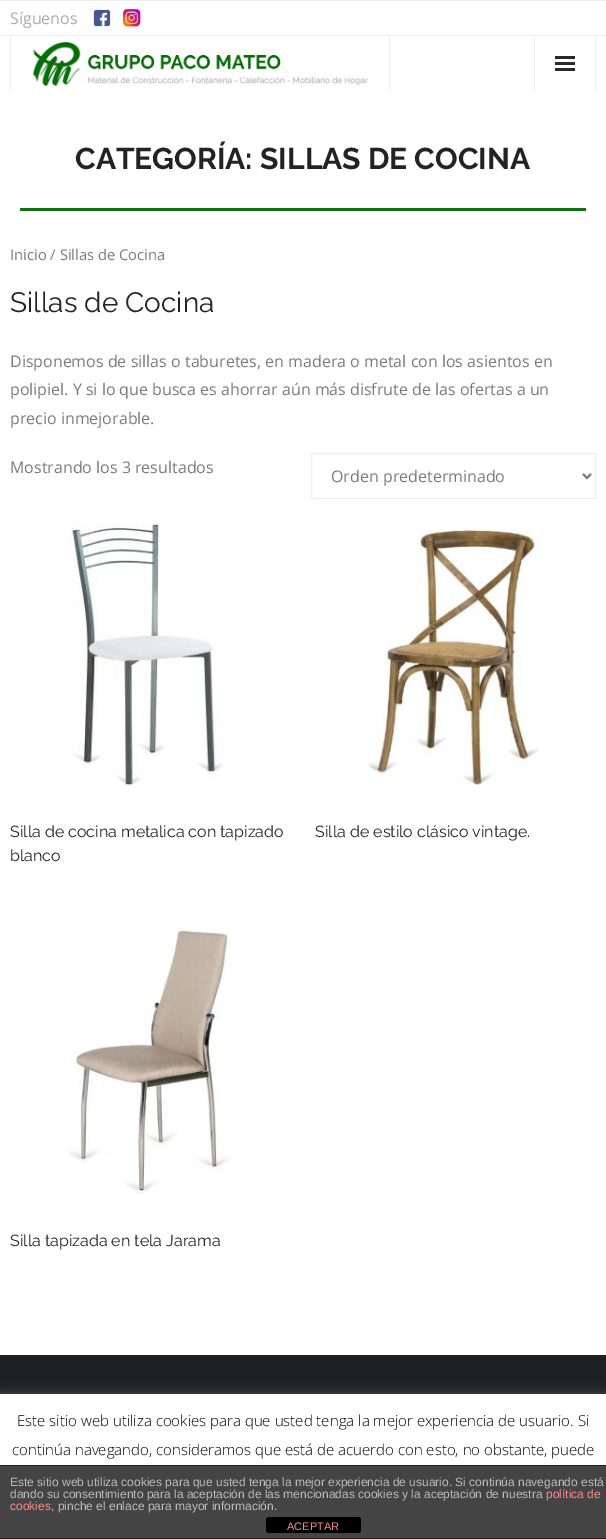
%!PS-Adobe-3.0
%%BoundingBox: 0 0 606 1539
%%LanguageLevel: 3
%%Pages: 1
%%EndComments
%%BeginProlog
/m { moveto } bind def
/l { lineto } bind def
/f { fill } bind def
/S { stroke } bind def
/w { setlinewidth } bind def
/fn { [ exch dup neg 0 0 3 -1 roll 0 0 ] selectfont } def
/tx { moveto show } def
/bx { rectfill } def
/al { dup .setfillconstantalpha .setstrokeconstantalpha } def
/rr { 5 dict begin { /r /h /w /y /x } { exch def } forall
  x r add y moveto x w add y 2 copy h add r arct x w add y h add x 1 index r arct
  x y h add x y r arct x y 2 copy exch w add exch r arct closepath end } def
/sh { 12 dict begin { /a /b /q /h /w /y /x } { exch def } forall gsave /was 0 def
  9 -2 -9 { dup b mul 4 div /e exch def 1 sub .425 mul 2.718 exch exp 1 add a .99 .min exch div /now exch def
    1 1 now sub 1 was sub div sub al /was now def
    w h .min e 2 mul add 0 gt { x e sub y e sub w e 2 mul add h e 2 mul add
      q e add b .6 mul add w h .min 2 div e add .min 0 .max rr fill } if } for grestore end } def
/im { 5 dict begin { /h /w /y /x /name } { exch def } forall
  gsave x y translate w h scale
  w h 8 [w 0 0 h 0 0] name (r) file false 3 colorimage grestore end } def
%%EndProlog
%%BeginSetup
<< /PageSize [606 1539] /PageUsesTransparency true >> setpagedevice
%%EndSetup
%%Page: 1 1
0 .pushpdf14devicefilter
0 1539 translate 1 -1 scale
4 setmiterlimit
1 setgray
0 0 606 1539 bx
0.933 setgray
0 0 606 1 bx
0 35 606 1 bx
/OpenSans-Regular 16 fn
0.667 setgray
(Síguenos) 10 24 tx
(image0.raw) 93 9 18 18 im
(image1.raw) 123 9 18 18 im
0.933 setgray
389 36 1 55 bx
10 36 1 55 bx
(image2.raw) 32 42 336 44 im
595 36 1 55 bx
534 36 1 55 bx
0.161 setgray
555 56 20 3 bx
555 62 20 3 bx
555 68 20 3 bx
0.059 0.447 0.059 setrgbcolor
20 208 566 3 bx
/Raleway-Bold 30 fn
0.137 setgray
(CATEGORÍA: SILLAS DE COCINA) 75 169 tx
/OpenSans-Regular 14.75 fn
0.478 setgray
(Inicio / Sillas de Cocina) 10 260 tx
/Raleway-Regular 28 fn
0.137 setgray
(Sillas de Cocina) 10 312 tx
/OpenSans-Regular 16 fn
0.478 setgray
(Disponemos de sillas o taburetes, en madera o metal con los asientos en) 10 367 tx
(polipiel. Y si lo que busca es ahorrar aún más disfrute de las ofertas a un) 10 395 tx
(precio inmejorable.) 10 424 tx
(Mostrando los 3 resultados) 10 473 tx
0.933 setgray
311.5 453.5 284 45 rectstroke
0.478 setgray
2 w
583 474 m 587 478 l 591 474 l S
(Orden predeterminado) 331 482 tx
(image3.raw) 70 523 154 263 im
/Raleway-Regular 16 fn
0.137 setgray
(Silla de cocina metalica con tapizado) 10 837 tx
(blanco) 10 861 tx
(image4.raw) 367 529 173 256 im
(Silla de estilo clásico vintage.) 315 837 tx
(image5.raw) 67 924 164 270 im
(Silla tapizada en tela Jarama) 10 1246 tx
0.118 0.125 0.129 setrgbcolor
0 1355 606 39 bx
0.675 0.671 0.671 setrgbcolor
0 1393 606 145 0 5 0.3 sh
1 setgray
0 1394 606 71 bx
/OpenSans-Light 15 fn
0 setgray
(Este sitio web utiliza cookies para que usted tenga la mejor experiencia de usuario. Si) 17 1426 tx
(continúa navegando, consideramos que está de acuerdo con esto, no obstante, puede) 12 1455 tx
0.267 setgray
0 1466 606 72 bx
0.133 setgray
0 1465 606 1 bx
0 1538 606 1 bx
/LiberationSans-Regular 12 fn
0.733 setgray
(Este sitio web utiliza cookies para que usted tenga la mejor experiencia de usuario. Si continúa navegando está) 10 1486 tx
(dando su consentimiento para la aceptación de las mencionadas cookies y la aceptación de nuestra) 10 1498 tx
1 0.533 0.533 setrgbcolor
(política de) 546 1498 tx
(cookies) 10 1510 tx
0.733 setgray
(, pinche el enlace para mayor información.) 51 1510 tx
0 setgray
266 1517 95 16 3 rr f
/LiberationSans-Regular 11 fn
1 0.533 0.533 setrgbcolor
(ACEPTAR) 287 1530 tx
.poppdf14devicefilter showpage
%%EOF
